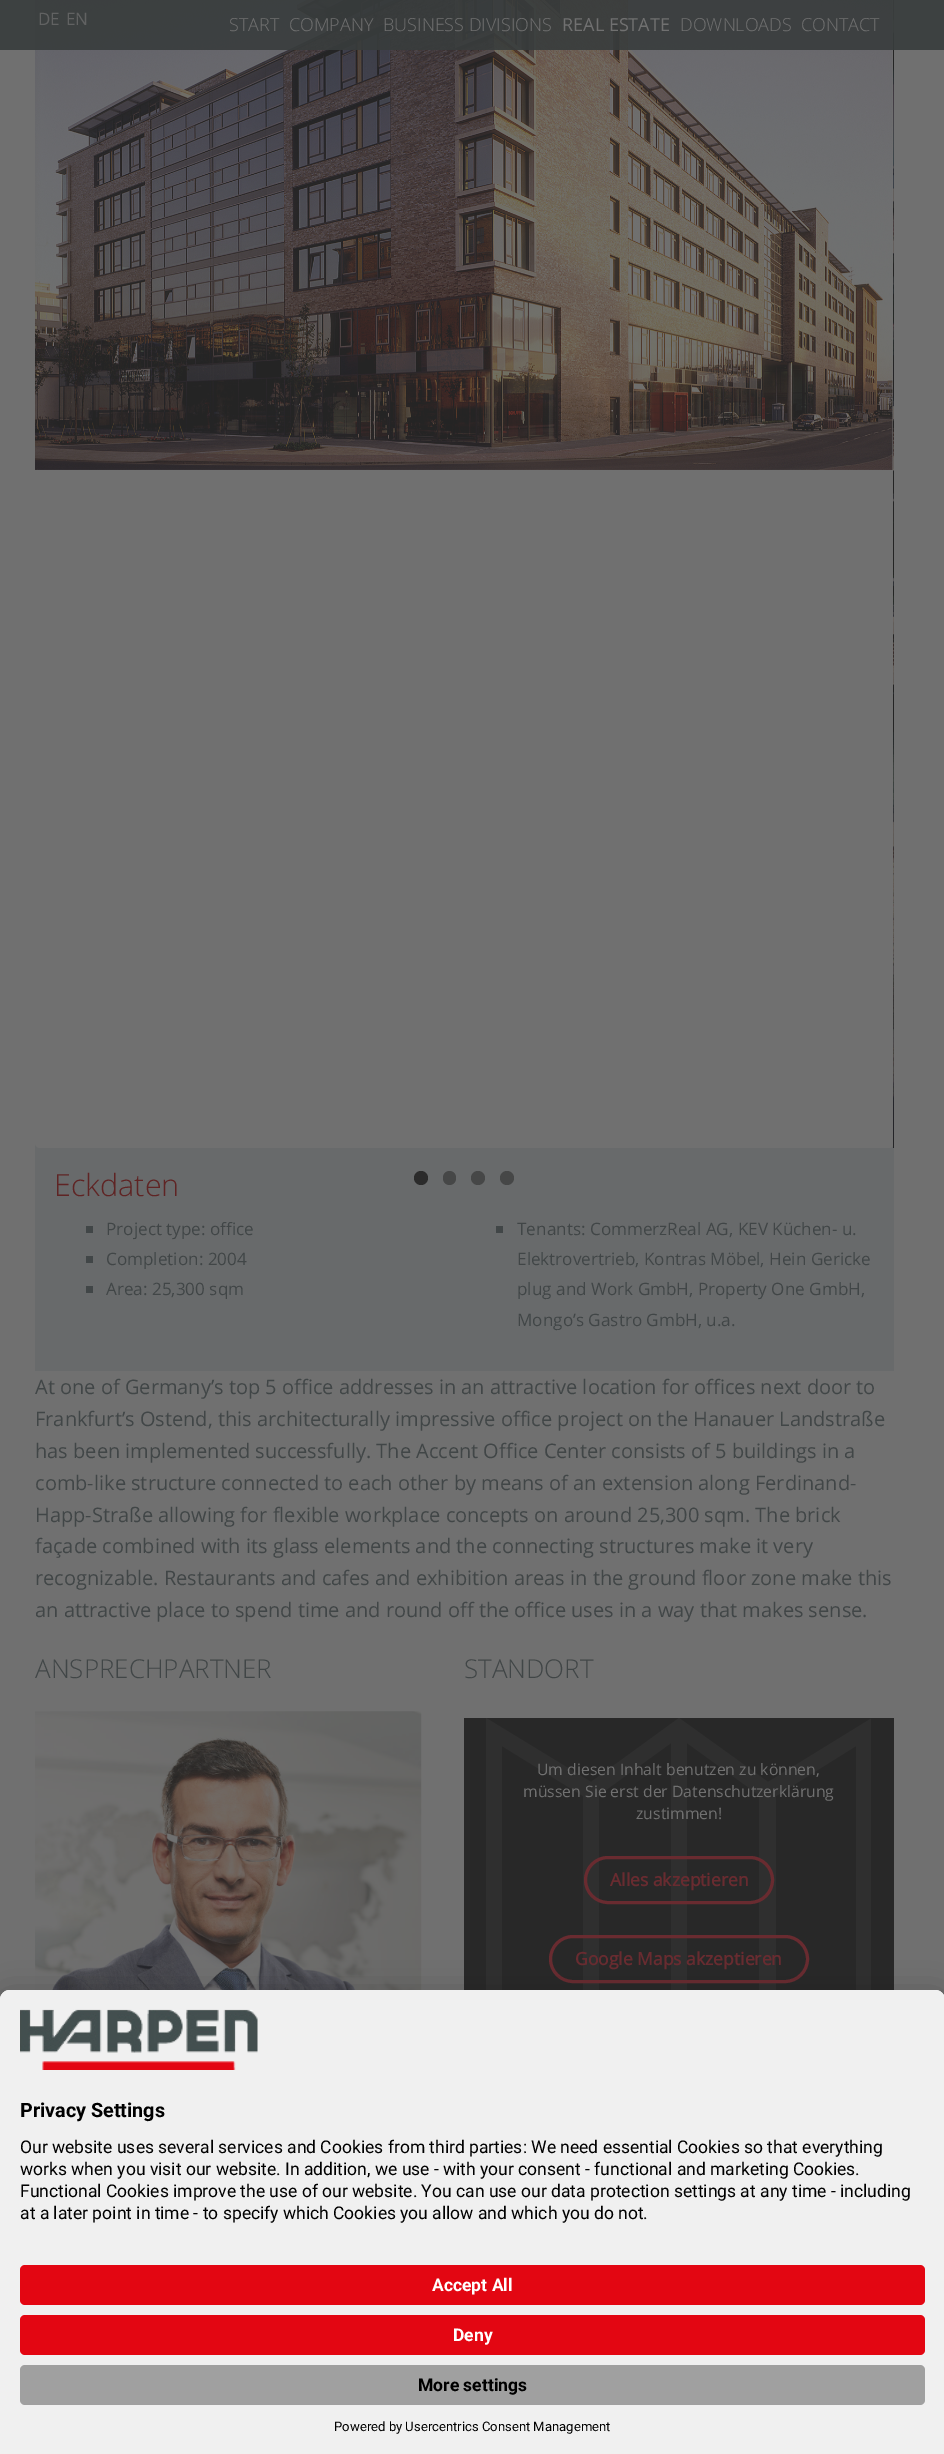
%!PS-Adobe-3.0
%%BoundingBox: 0 0 944 2454
%%LanguageLevel: 3
%%Pages: 1
%%EndComments
%%BeginProlog
/m { moveto } bind def
/l { lineto } bind def
/c { curveto } bind def
/h { closepath } bind def
/f { fill } bind def
/S { stroke } bind def
/q { gsave } bind def
/Q { grestore } bind def
/w { setlinewidth } bind def
/fn { [ exch dup neg 0 0 3 -1 roll 0 0 ] selectfont } def
/tx { moveto show } def
/bx { rectfill } def
/al { dup .setfillconstantalpha .setstrokeconstantalpha } def
/ci { newpath 0 360 arc closepath } def
/rr { 5 dict begin { /r /h /w /y /x } { exch def } forall
  x r add y moveto x w add y 2 copy h add r arct x w add y h add x 1 index r arct
  x y h add x y r arct x y 2 copy exch w add exch r arct closepath end } def
/sh { 12 dict begin { /a /b /q /h /w /y /x } { exch def } forall gsave /was 0 def
  9 -2 -9 { dup b mul 4 div /e exch def 1 sub .425 mul 2.718 exch exp 1 add a .99 .min exch div /now exch def
    1 1 now sub 1 was sub div sub al /was now def
    w h .min e 2 mul add 0 gt { x e sub y e sub w e 2 mul add h e 2 mul add
      q e add b .6 mul add w h .min 2 div e add .min 0 .max rr fill } if } for grestore end } def
/im { 5 dict begin { /h /w /y /x /name } { exch def } forall
  gsave x y translate w h scale
  w h 8 [w 0 0 h 0 0] name (r) file false 3 colorimage grestore end } def
%%EndProlog
%%BeginSetup
<< /PageSize [944 2454] /PageUsesTransparency true >> setpagedevice
%%EndSetup
%%Page: 1 1
0 .pushpdf14devicefilter
0 2454 translate 1 -1 scale
4 setmiterlimit
0.439 setgray
0 0 944 2454 bx
0.408 0.416 0.42 setrgbcolor
35 1143 859 228 bx
0.439 setgray
35 -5 859 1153 5 rr f
(image0.raw) 35 0 858 470 im
(image1.raw) 893 0 1 1148 im
0.9 al
0.22 0.235 0.235 setrgbcolor
0 0 944 50 bx
/OpenSans-Regular 17 fn
1 al
0.38 0.384 0.384 setrgbcolor
(DE) 38 25 tx
(EN) 66 25 tx
/OpenSans-Light 18 fn
0.439 setgray
(START) 229 31 tx
(COMPANY) 289 31 tx
(BUSINESS DIVISIONS) 383 31 tx
/OpenSans-Regular 18 fn
(REAL ESTATE) 562 31 tx
/OpenSans-Light 18 fn
(DOWNLOADS) 680 31 tx
(CONTACT) 801 31 tx
0.169 setgray
421 1178 7 ci f
0.275 0.278 0.278 setrgbcolor
443 1171 13 14 6.5 rr f
478 1178 7 ci f
507 1178 7 ci f
/OpenSans-Light 30.5 fn
0.373 0.141 0.141 setrgbcolor
(Eckdaten) 54 1196 tx
0.255 0.275 0.278 setrgbcolor
86 1226 7 7 bx
/OpenSans-Regular 17.1 fn
(Project type: office) 106 1235 tx
496 1226 7 7 bx
(Tenants: CommerzReal AG, KEV Küchen- u.) 517 1235 tx
(Elektrovertrieb, Kontras Möbel, Hein Gericke) 517 1265 tx
(plug and Work GmbH, Property One GmbH,) 517 1295 tx
(Mongo’s Gastro GmbH, u.a.) 517 1326 tx
86 1256 7 7 bx
(Completion: 2004) 106 1265 tx
86 1286 7 7 bx
(Area: 25,300 sqm) 106 1295 tx
/OpenSans-Regular 20 fn
(At one of Germany’s top 5 office addresses in an attractive location for offices next door to) 35 1394 tx
(Frankfurt’s Ostend, this architecturally impressive office project on the Hanauer Landstraße) 35 1426 tx
(has been implemented successfully. The Accent Office Center consists of 5 buildings in a) 35 1458 tx
(comb-like structure connected to each other by means of an extension along Ferdinand-) 35 1490 tx
(Happ-Straße allowing for flexible workplace concepts on around 25,300 sqm. The brick) 35 1522 tx
(façade combined with its glass elements and the connecting structures make it very) 35 1553 tx
(recognizable. Restaurants and cafes and exhibition areas in the ground floor zone make this) 35 1585 tx
(an attractive place to spend time and round off the office uses in a way that makes sense.) 35 1617 tx
/OpenSans-Light 26 fn
(ANSPRECHPARTNER) 35 1678 tx
(image2.raw) 35 1711 387 279 im
(STANDORT) 464 1678 tx
0.157 setgray
464 1718 430 272 bx
q
486 1718 385 385 rectclip
0.1 al
0.439 setgray
768 1782 m 679 1718 l 591 1782 l 486 1718 l 486 2039 l 591 2103 l 679 2039 l 768 2103 l 872 2039 l 872 1718 l h 583 1914 m 583 2081 l 502 2031 l 502 1746 l 583 1796 l h 671 1793 m 671 2024 l 599 2078 l 599 1795 l 671 1743 l h 759 1931 m 759 2078 l 687 2026 l 687 1743 l 759 1795 l h 856 2029 m 776 2079 l 776 1796 l 856 1746 l h eofill
Q
/OpenSans-Regular 15.75 fn
0.439 setgray
(Um diesen Inhalt benutzen zu können,) 537 1775 tx
(müssen Sie erst der Datenschutzerklärung) 523 1797 tx
(zustimmen!) 636 1819 tx
0.412 0.169 0.188 setrgbcolor
3 w
585.5 1857.5 187 45 22.5 rr S
/OpenSans-Bold 17.5 fn
(Alles akzeptieren) 610 1886 tx
550.5 1936.5 257 45 22.5 rr S
(Google Maps akzeptieren) 575 1965 tx
0 setgray
0 2015 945 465 10 17.5 0.3 sh
0 1996 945 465 10 16 0.22 sh
0.941 setgray
10 1990 m 935 1990 l 940.5 1990 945 1994.5 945 2000 c 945 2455 l 0 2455 l 0 2000 l 0 1994.5 4.5 1990 10 1990 c h f
10 1990 m 935 1990 l 940.5 1990 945 1994.5 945 2000 c 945 2250 l 0 2250 l 0 2000 l 0 1994.5 4.5 1990 10 1990 c h f
(image3.raw) 20 2009 238 61 im
/Roboto-Bold 19.75 fn
0 setgray
(Privacy Settings) 20 2117 tx
/Roboto-Regular 17.5 fn
(Our website uses several services and Cookies from third parties: We need essential Cookies so that everything) 20 2153 tx
(works when you visit our website. In addition, we use - with your consent - functional and marketing Cookies.) 20 2175 tx
(Functional Cookies improve the use of our website. You can use our data protection settings at any time - including) 20 2197 tx
(at a later point in time - to specify which Cookies you allow and which you do not.) 20 2219 tx
0.89 0.024 0.071 setrgbcolor
20 2265 905 40 5 rr f
/Roboto-Bold 17.5 fn
1 setgray
(Accept All) 432 2291 tx
0.89 0.024 0.071 setrgbcolor
20 2315 905 40 5 rr f
1 setgray
(Deny) 453 2341 tx
0.627 setgray
20 2365 905 40 5 rr f
0 setgray
(More settings) 418 2391 tx
/Roboto-Regular 13.1 fn
(Powered by Usercentrics Consent Management) 334 2431 tx
.poppdf14devicefilter showpage
%%EOF
